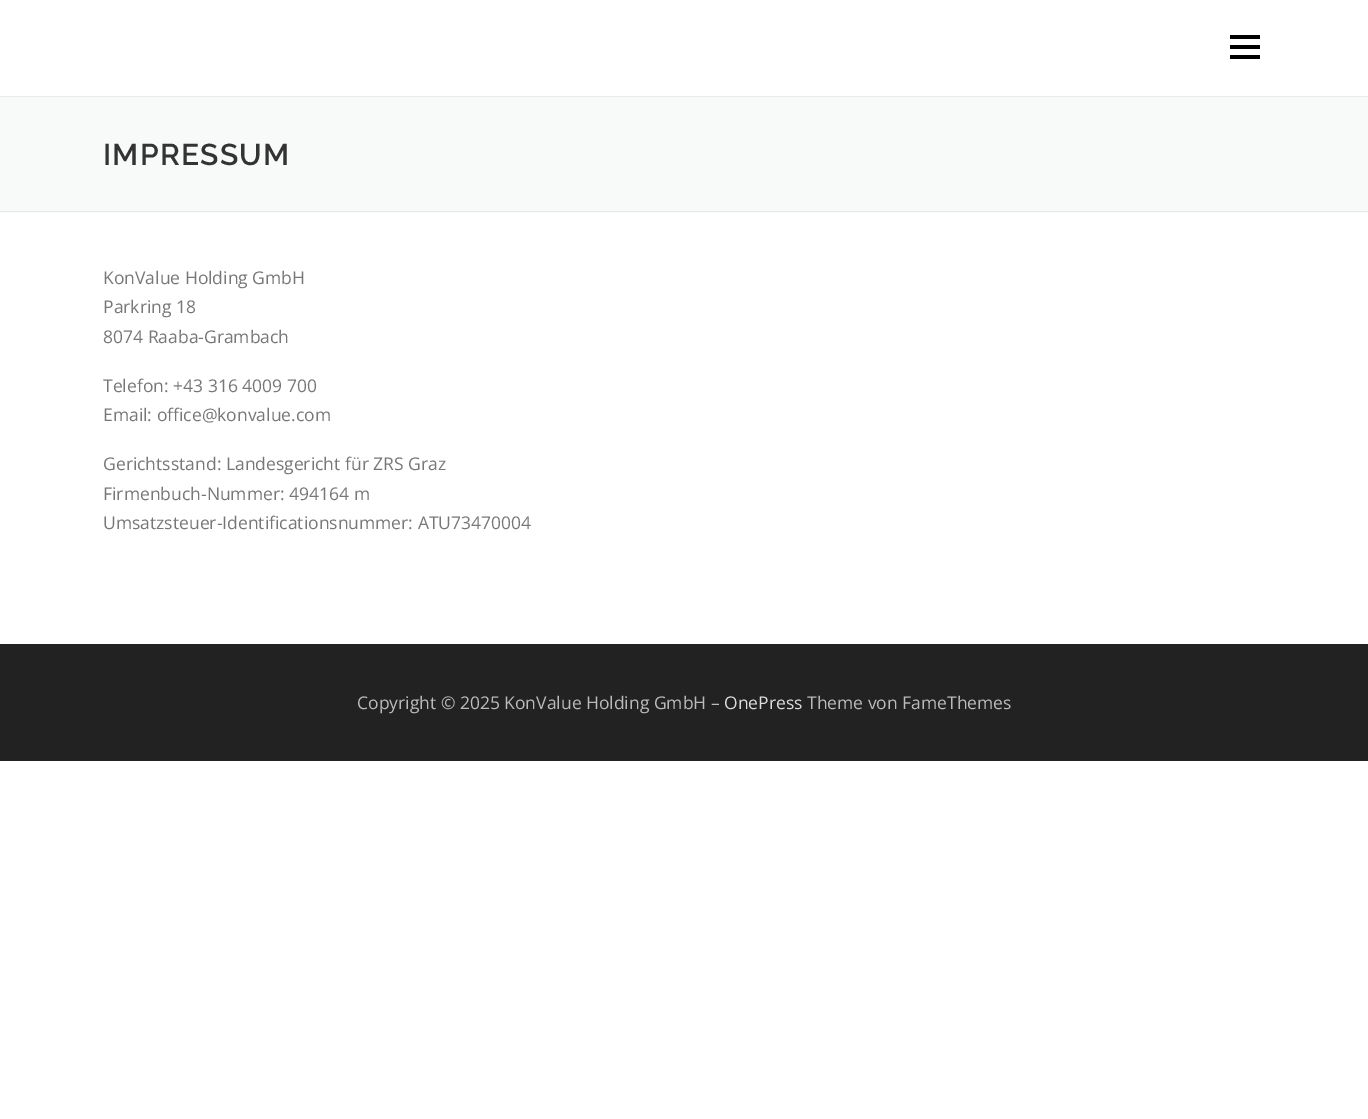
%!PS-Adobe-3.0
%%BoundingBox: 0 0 1368 1119
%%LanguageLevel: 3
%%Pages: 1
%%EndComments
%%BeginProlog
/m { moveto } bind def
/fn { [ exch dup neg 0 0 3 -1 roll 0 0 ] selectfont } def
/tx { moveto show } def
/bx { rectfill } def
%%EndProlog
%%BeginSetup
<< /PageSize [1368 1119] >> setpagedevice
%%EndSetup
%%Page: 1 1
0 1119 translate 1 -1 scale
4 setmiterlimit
1 setgray
0 0 1368 1119 bx
0 setgray
1230 45 30 4 bx
1230 35 30 4 bx
1230 55 30 4 bx
0.973 0.976 0.976 setrgbcolor
0 97 1368 116 bx
0.914 setgray
0 96 1368 1 bx
0 211 1368 1 bx
/Raleway-SemiBold 30 fn
0.2 setgray
103 165 m 1.25 0 (IMPRESSUM) ashow
/OpenSans-Regular 17.5 fn
0.467 setgray
(KonValue Holding GmbH) 103 284 tx
(Parkring 18) 103 313 tx
(8074 Raaba-Grambach) 103 343 tx
(Telefon: +43 316 4009 700) 103 392 tx
(Email: office@konvalue.com) 103 421 tx
(Gerichtsstand: Landesgericht für ZRS Graz) 103 470 tx
(Firmenbuch-Nummer: 494164 m) 103 500 tx
(Umsatzsteuer-Identificationsnummer: ATU73470004) 103 529 tx
0.133 setgray
0 644 1368 117 bx
0.733 setgray
(Copyright © 2025 KonValue Holding GmbH –) 357 709 tx
0.867 setgray
(OnePress) 724 709 tx
0.733 setgray
(Theme von FameThemes) 807 709 tx
showpage
%%EOF
